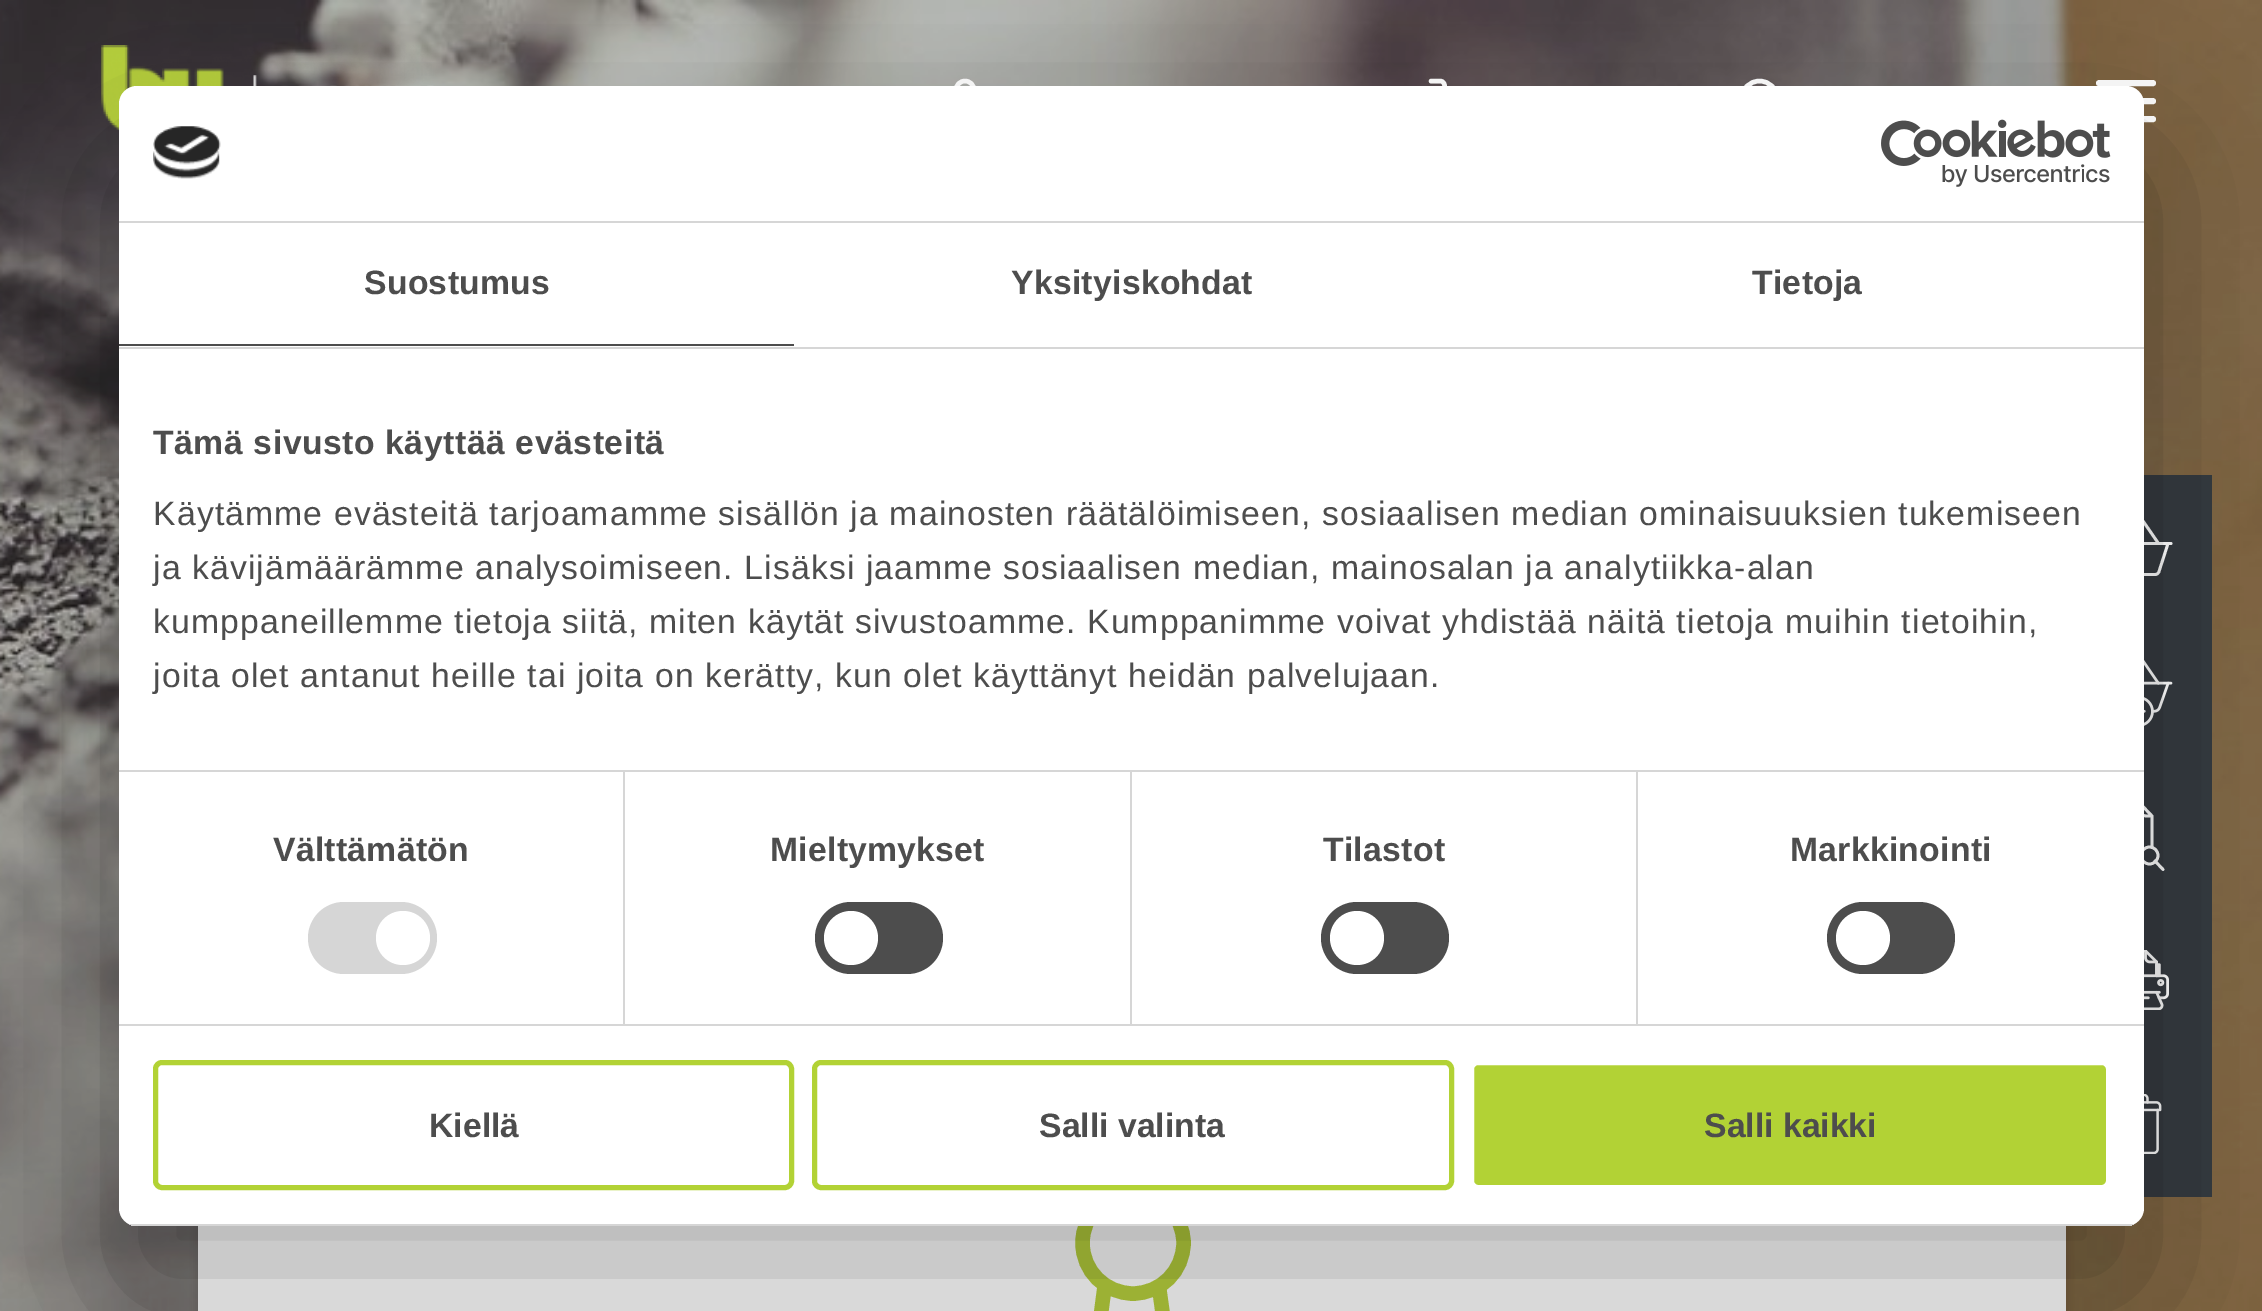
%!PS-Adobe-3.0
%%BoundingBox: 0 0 2262 1311
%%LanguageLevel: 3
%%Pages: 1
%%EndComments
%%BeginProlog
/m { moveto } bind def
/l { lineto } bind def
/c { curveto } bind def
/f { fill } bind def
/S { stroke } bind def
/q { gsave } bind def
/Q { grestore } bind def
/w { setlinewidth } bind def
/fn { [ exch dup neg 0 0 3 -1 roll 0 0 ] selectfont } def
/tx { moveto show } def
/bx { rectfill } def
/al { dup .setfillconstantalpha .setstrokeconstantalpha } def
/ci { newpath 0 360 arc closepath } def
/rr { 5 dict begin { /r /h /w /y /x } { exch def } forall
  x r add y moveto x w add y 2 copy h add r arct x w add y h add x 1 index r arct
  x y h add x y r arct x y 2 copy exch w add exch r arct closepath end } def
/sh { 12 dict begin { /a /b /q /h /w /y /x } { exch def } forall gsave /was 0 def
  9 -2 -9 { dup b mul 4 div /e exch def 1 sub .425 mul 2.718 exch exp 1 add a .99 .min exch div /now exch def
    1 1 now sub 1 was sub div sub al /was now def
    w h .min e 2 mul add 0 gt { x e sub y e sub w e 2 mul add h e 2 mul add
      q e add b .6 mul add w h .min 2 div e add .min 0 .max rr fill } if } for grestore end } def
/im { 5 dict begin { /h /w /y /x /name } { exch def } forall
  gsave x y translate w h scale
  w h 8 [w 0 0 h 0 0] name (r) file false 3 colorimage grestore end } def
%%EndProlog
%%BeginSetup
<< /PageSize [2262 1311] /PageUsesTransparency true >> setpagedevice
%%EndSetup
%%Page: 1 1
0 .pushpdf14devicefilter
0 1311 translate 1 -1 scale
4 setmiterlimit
1 setgray
0 0 2262 1311 bx
(image0.raw) 0 0 2262 1311 im
0 setgray
194 470 1876 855 0 4.5 0.1 sh
1 setgray
198 1226 1868 85 bx
0.714 0.816 0.239 setrgbcolor
14.4 w
1133 1243 50.5 ci S
1 setlinecap
1 setlinejoin
1104.5 1287 m 1096 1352 l 1132 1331 l 1168 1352 l 1159 1287 l S
(image1.raw) 101 45 333 86 im
1 setgray
4.5 w
0 setlinecap
0 setlinejoin
965 90 9 ci S
1 setlinecap
1 setlinejoin
1431 81 m 1440 81 l 1442.5 81 1444.5 83 1444.5 85.5 c 1444.5 117 l 1444.5 119.5 1442.5 121.5 1440 121.5 c 1431 121.5 l S
0 setlinecap
0 setlinejoin
1759.5 99 18 ci S
6 w
1 setlinecap
1 setlinejoin
2099 101 m 2153 101 l 2099 83 m 2153 83 l 2099 119 m 2153 119 l S
0.204 0.227 0.251 setrgbcolor
2144 475 68 722 bx
1 setgray
2.8 w
2106.5 543.5 m 2171 543.5 l S
2109 543.5 m 2118 571.5 l 2118.5 573.5 2120 574.5 2122 574.5 c 2155 574.5 l 2157 574.5 2158.5 573.5 2159 571.5 c 2168 543.5 l 2143 521 m 2158.5 543.5 l S
(image4.raw) 2144 660 29 66 im
2141 855.5 m 2120.5 855.5 l 2118 855.5 2116.5 853.5 2116.5 851 c 2116.5 809 l 2116.5 806.5 2118 804.5 2120.5 804.5 c 2141 804.5 l 2152 816 l 2152 847.5 l 2141 804.5 m 2141 816.5 2140.5 816 2152 816 c S
0 setlinecap
0 setlinejoin
2149.5 855.5 8.5 ci S
1 setlinecap
1 setlinejoin
2155 861 m 2163 869.5 l S
(image5.raw) 2144 950 25 60 im
(image6.raw) 2144 1094 18 60 im
0 setgray
119 158 2025 1140 18 76.5 0.3 sh
1 setgray
119 86 2025 1140 18 rr f
0.839 setgray
119 221 2025 2 bx
(image2.raw) 153 126 68 53 im
(image3.raw) 1881 119 230 68 im
119 347 2025 2 bx
0.302 setgray
119 344 675 2 bx
/LiberationSans-Bold 33.75 fn
364 294 m 0.25 0 (Suostumus) ashow
1011 294 m 0.25 0 (Yksityiskohdat) ashow
1752 294 m 0.25 0 (Tietoja) ashow
0.839 setgray
119 770 2025 2 bx
0.302 setgray
153 454 m 0.55 0 (Tämä sivusto käyttää evästeitä) ashow
/LiberationSans-Regular 33.75 fn
153 525 m 1.12 0 (Käytämme evästeitä tarjoamamme sisällön ja mainosten räätälöimiseen, sosiaalisen median ominaisuuksien tukemiseen) ashow
153 579 m 1.12 0 (ja kävijämäärämme analysoimiseen. Lisäksi jaamme sosiaalisen median, mainosalan ja analytiikka-alan) ashow
153 633 m 1.12 0 (kumppaneillemme tietoja siitä, miten käytät sivustoamme. Kumppanimme voivat yhdistää näitä tietoja muihin tietoihin,) ashow
153 687 m 1.12 0 (joita olet antanut heille tai joita on kerätty, kun olet käyttänyt heidän palvelujaan.) ashow
0.839 setgray
119 1024 2025 2 bx
623 772 2 252 bx
/LiberationSans-Bold 33.75 fn
0.302 setgray
273 861 m 0.25 0 (Välttämätön) ashow
0.839 setgray
308 902 129 72 36 rr f
1 setgray
403 938 27 ci f
0.839 setgray
1130 772 2 252 bx
0.302 setgray
770 861 m 0.25 0 (Mieltymykset) ashow
815 902 128 72 36 rr f
1 setgray
851 938 27 ci f
0.839 setgray
1636 772 2 252 bx
0.302 setgray
1323 861 m 0.25 0 (Tilastot) ashow
1321 902 128 72 36 rr f
1 setgray
1357 938 27 ci f
0.302 setgray
1790 861 m 0.25 0 (Markkinointi) ashow
1827 902 128 72 36 rr f
1 setgray
1863 938 27 ci f
q
119 86 2025 1140 18 rr clip newpath
0.839 setgray
129 1224 2005 2 bx
Q
0.698 0.824 0.208 setrgbcolor
5 w
0 setlinecap
0 setlinejoin
155.5 1062.5 636 125 6.5 rr S
0.302 setgray
(Kiellä) 429 1137 tx
0.698 0.824 0.208 setrgbcolor
814.5 1062.5 637 125 6.5 rr S
0.302 setgray
(Salli valinta) 1039 1137 tx
0.698 0.824 0.208 setrgbcolor
1471.5 1062.5 637 125 6.5 rr q f Q
1 setgray
S
0.302 setgray
(Salli kaikki) 1704 1137 tx
.poppdf14devicefilter showpage
%%EOF
